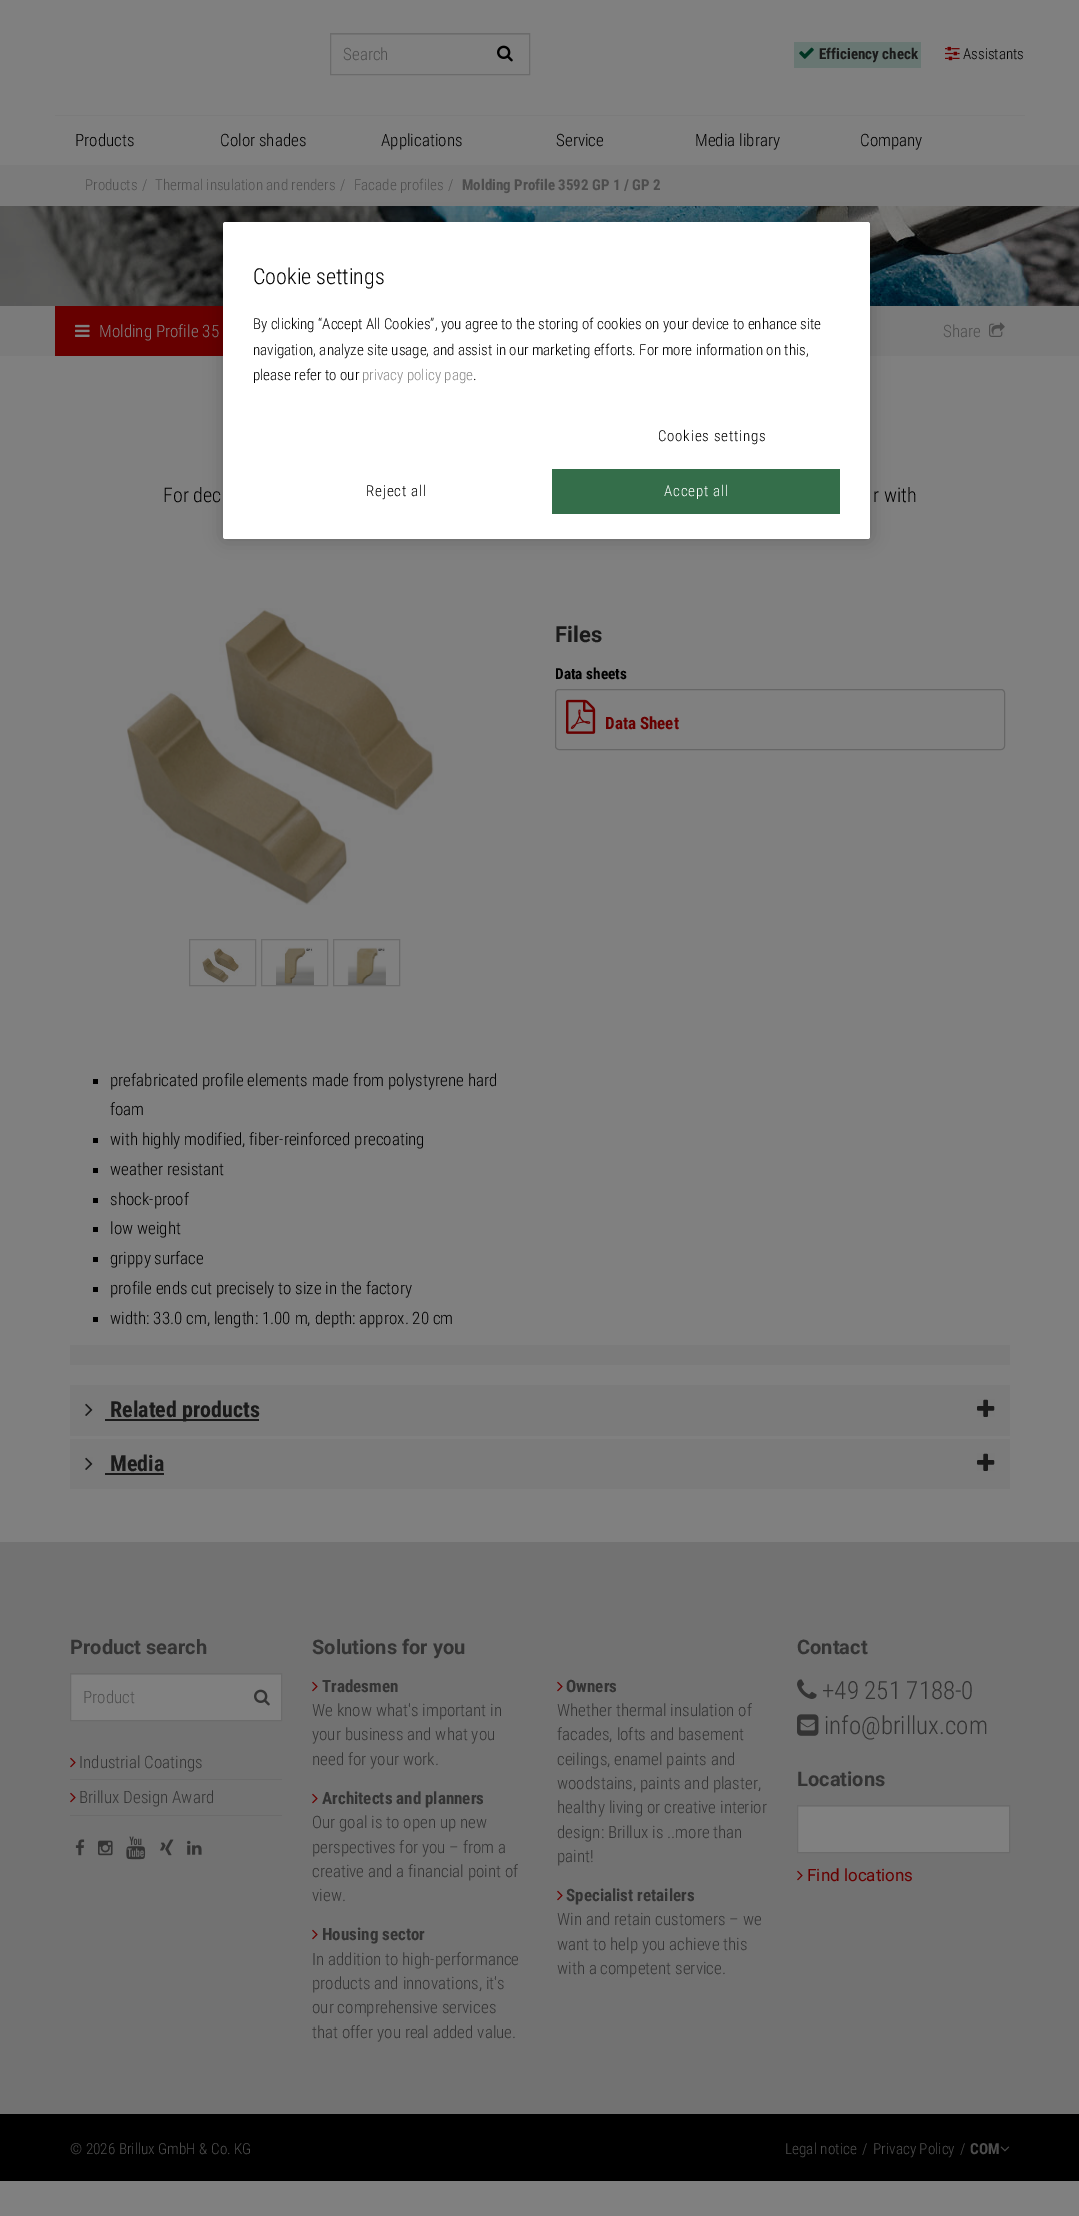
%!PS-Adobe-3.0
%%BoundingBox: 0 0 1079 2216
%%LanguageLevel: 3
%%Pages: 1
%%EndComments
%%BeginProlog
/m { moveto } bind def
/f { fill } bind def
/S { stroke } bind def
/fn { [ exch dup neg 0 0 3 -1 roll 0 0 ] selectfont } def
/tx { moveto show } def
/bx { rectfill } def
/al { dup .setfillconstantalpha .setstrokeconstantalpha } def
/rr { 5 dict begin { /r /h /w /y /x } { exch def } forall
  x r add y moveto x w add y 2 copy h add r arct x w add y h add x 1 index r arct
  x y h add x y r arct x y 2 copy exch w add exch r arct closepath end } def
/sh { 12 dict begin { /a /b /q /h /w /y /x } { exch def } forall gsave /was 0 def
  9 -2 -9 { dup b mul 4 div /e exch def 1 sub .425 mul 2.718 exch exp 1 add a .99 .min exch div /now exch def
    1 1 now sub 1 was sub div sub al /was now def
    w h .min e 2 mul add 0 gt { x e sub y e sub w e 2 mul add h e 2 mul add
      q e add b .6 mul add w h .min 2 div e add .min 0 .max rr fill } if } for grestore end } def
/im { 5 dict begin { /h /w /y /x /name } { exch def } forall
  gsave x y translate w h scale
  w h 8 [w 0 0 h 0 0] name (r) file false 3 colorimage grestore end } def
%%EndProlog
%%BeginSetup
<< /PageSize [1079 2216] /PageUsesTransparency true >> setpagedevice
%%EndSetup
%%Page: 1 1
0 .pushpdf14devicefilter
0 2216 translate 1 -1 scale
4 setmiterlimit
0.502 setgray
0 0 1079 2216 bx
0.463 setgray
331 34 198 1 bx
0.42 setgray
330.5 33.5 199 41 rectstroke
/RobotoCondensed-Light 17 fn
0.302 setgray
(Search) 343 60 tx
(image0.raw) 497 45 16 17 im
0.408 0.463 0.447 setrgbcolor
794 42 127 26 bx
(image1.raw) 799 47 15 12 im
/RobotoCondensed-Bold 15 fn
0.102 setgray
(Efficiency check) 819 59 tx
(image2.raw) 945 46 15 15 im
/RobotoCondensed-Light 15 fn
0 setgray
(Assistants) 963 59 tx
0.482 setgray
55 115 970 1 bx
/RobotoCondensed-Light 17 fn
0 setgray
(Products) 75 146 tx
(Color shades) 220 146 tx
(Applications) 381 146 tx
(Service) 556 146 tx
(Media library) 695 146 tx
(Company) 860 146 tx
0.482 setgray
0 165 1079 41 bx
/RobotoCondensed-Light 15 fn
0.302 setgray
(Products) 85 190 tx
(/) 142 190 tx
(Thermal insulation and renders) 155 190 tx
(/) 340 190 tx
(Facade profiles) 354 190 tx
(/) 448 190 tx
/RobotoCondensed-Bold 15 fn
(Molding Profile 3592 GP 1 / GP 2) 462 190 tx
(image3.raw) 0 206 1079 100 im
0.482 setgray
0 306 1079 50 bx
0.4 0 0 setrgbcolor
55 306 168 50 bx
(image4.raw) 75 324 15 13 im
/RobotoCondensed-Light 17 fn
0.502 setgray
(Molding Profile 35) 99 337 tx
0.302 setgray
(Share) 943 337 tx
(image5.raw) 989 322 16 15 im
/RobotoCondensed-Light 20 fn
0 setgray
(For dec) 163 502 tx
(r with) 873 502 tx
/Roboto-Bold 22 fn
0.102 setgray
(Files) 555 642 tx
/RobotoCondensed-Bold 15.25 fn
0 setgray
(Data sheets) 555 679 tx
0.4 setgray
555.5 689.5 449 60 3.5 rr S
(image6.raw) 566 699 30 35 im
/RobotoCondensed-Bold 17 fn
0.4 0 0 setrgbcolor
(Data Sheet) 605 729 tx
(image7.raw) 127 608 307 297 im
0.42 setgray
189.5 939.5 66 46 rectstroke
(image8.raw) 202 948 40 35 im
261.5 939.5 66 46 rectstroke
(image9.raw) 276 947 38 38 im
333.5 939.5 66 46 rectstroke
(image10.raw) 347 947 39 38 im
0 setgray
93 1079 5 5 bx
/RobotoCondensed-Light 17 fn
(prefabricated profile elements made from polystyrene hard) 110 1086 tx
(foam) 110 1115 tx
93 1138 5 5 bx
(with highly modified, fiber-reinforced precoating) 110 1145 tx
93 1168 5 5 bx
(weather resistant) 110 1175 tx
93 1198 5 5 bx
(shock-proof) 110 1205 tx
93 1227 5 5 bx
(low weight) 110 1234 tx
93 1257 5 5 bx
(grippy surface) 110 1264 tx
93 1287 5 5 bx
(profile ends cut precisely to size in the factory) 110 1294 tx
93 1317 5 5 bx
(width: 33.0 cm, length: 1.00 m, depth: approx. 20 cm) 110 1324 tx
0.482 setgray
70 1345 940 20 bx
70 1385 940 51 bx
(image11.raw) 85 1403 8 13 im
0.102 setgray
105 1419 154 2 bx
/RobotoCondensed-Bold 22 fn
(Related products) 110 1417 tx
(image12.raw) 977 1399 18 18 im
0.482 setgray
70 1439 940 50 bx
(image11.raw) 85 1457 8 13 im
0.102 setgray
(Media) 110 1471 tx
105 1473 59 2 bx
(image12.raw) 977 1453 18 18 im
0.447 setgray
0 1542 1079 572 bx
/Roboto-Bold 20 fn
0.2 setgray
(Product search) 70 1654 tx
0.502 setgray
71 1675 210 45 bx
0.463 setgray
71 1674 210 1 bx
0.42 setgray
70.5 1673.5 211 47 rectstroke
/RobotoCondensed-Light 17 fn
0.302 setgray
(Product) 83 1703 tx
(image13.raw) 254 1689 16 17 im
0.416 setgray
70 1779 212 1 bx
(image14.raw) 70 1757 6 11 im
0.2 setgray
(Industrial Coatings) 79 1768 tx
0.416 setgray
70 1815 212 1 bx
(image14.raw) 70 1792 6 11 im
0.2 setgray
(Brillux Design Award) 79 1803 tx
(image15.raw) 75 1839 10 17 im
(image16.raw) 98 1840 15 16 im
(image17.raw) 126 1836 20 24 im
(image18.raw) 160 1839 14 17 im
(image19.raw) 187 1840 15 15 im
/Roboto-Bold 20 fn
(Solutions for you) 312 1654 tx
(image14.raw) 312 1681 6 11 im
/RobotoCondensed-Bold 17 fn
(Tradesmen) 322 1692 tx
/RobotoCondensed-Light 17 fn
(We know what's important in) 312 1716 tx
(your business and what you) 312 1740 tx
(need for your work.) 312 1765 tx
(image14.raw) 557 1681 6 11 im
/RobotoCondensed-Bold 17 fn
(Owners) 566 1692 tx
/RobotoCondensed-Light 17 fn
(Whether thermal insulation of) 557 1716 tx
(facades, lofts and basement) 557 1740 tx
(ceilings, enamel paints and) 557 1765 tx
(woodstains, paints and plaster,) 557 1789 tx
(healthy living or creative interior) 557 1813 tx
(design: Brillux is ..more than) 557 1838 tx
(paint!) 557 1862 tx
(image14.raw) 312 1793 6 11 im
/RobotoCondensed-Bold 17 fn
(Architects and planners) 322 1804 tx
/RobotoCondensed-Light 17 fn
(Our goal is to open up new) 312 1828 tx
(perspectives for you – from a) 312 1853 tx
(creative and a financial point of) 312 1877 tx
(view.) 312 1901 tx
(image14.raw) 312 1929 6 11 im
/RobotoCondensed-Bold 17 fn
(Housing sector) 322 1940 tx
/RobotoCondensed-Light 17 fn
(In addition to high-performance) 312 1965 tx
(products and innovations, it's) 312 1989 tx
(our comprehensive services) 312 2013 tx
(that offer you real added value.) 312 2038 tx
(image14.raw) 557 1890 6 11 im
/RobotoCondensed-Bold 17 fn
(Specialist retailers) 566 1901 tx
/RobotoCondensed-Light 17 fn
(Win and retain customers – we) 557 1925 tx
(want to help you achieve this) 557 1950 tx
(with a competent service.) 557 1974 tx
/Roboto-Bold 20 fn
(Contact) 797 1654 tx
(image20.raw) 797 1679 20 20 im
/RobotoCondensed-Light 25 fn
(+49 251 7188-0) 822 1699 tx
(image21.raw) 797 1714 22 22 im
(info@brillux.com) 824 1734 tx
/Roboto-Bold 20 fn
(Locations) 797 1786 tx
0.502 setgray
798 1807 211 45 bx
0.463 setgray
798 1806 211 1 bx
0.42 setgray
797.5 1805.5 212 47 rectstroke
(image14.raw) 797 1870 6 11 im
/Roboto-Regular 17 fn
0.4 0 0 setrgbcolor
(Find locations) 807 1881 tx
0 setgray
0 2114 1079 67 bx
/RobotoCondensed-Light 15.25 fn
0.302 setgray
(© 2026 Brillux GmbH & Co. KG) 70 2154 tx
(Legal notice) 785 2154 tx
(/) 862 2154 tx
(Privacy Policy) 873 2154 tx
(/) 960 2154 tx
/RobotoCondensed-Bold 15.25 fn
(COM) 970 2154 tx
(image22.raw) 1000 2146 10 6 im
0 setgray
223 222 647 317 2.5 9 0.2 sh
1 setgray
223 222 647 317 2.5 rr f
/RobotoCondensed-Light 22 fn
0 setgray
(Cookie settings) 253 284 tx
/RobotoCondensed-Light 15 fn
(By clicking “Accept All Cookies”, you agree to the storing of cookies on your device to enhance site) 253 329 tx
(navigation, analyze site usage, and assist in our marketing efforts. For more information on this,) 253 355 tx
(please refer to our) 253 380 tx
0.533 setgray
(privacy policy page) 362 380 tx
0 setgray
(.) 473 380 tx
658 441 m 0.75 0 (Cookies settings) ashow
366 496 m 0.75 0 (Reject all) ashow
0.204 0.431 0.29 setrgbcolor
552 469 288 45 bx
1 setgray
664 496 m 0.75 0 (Accept all) ashow
.poppdf14devicefilter showpage
%%EOF
